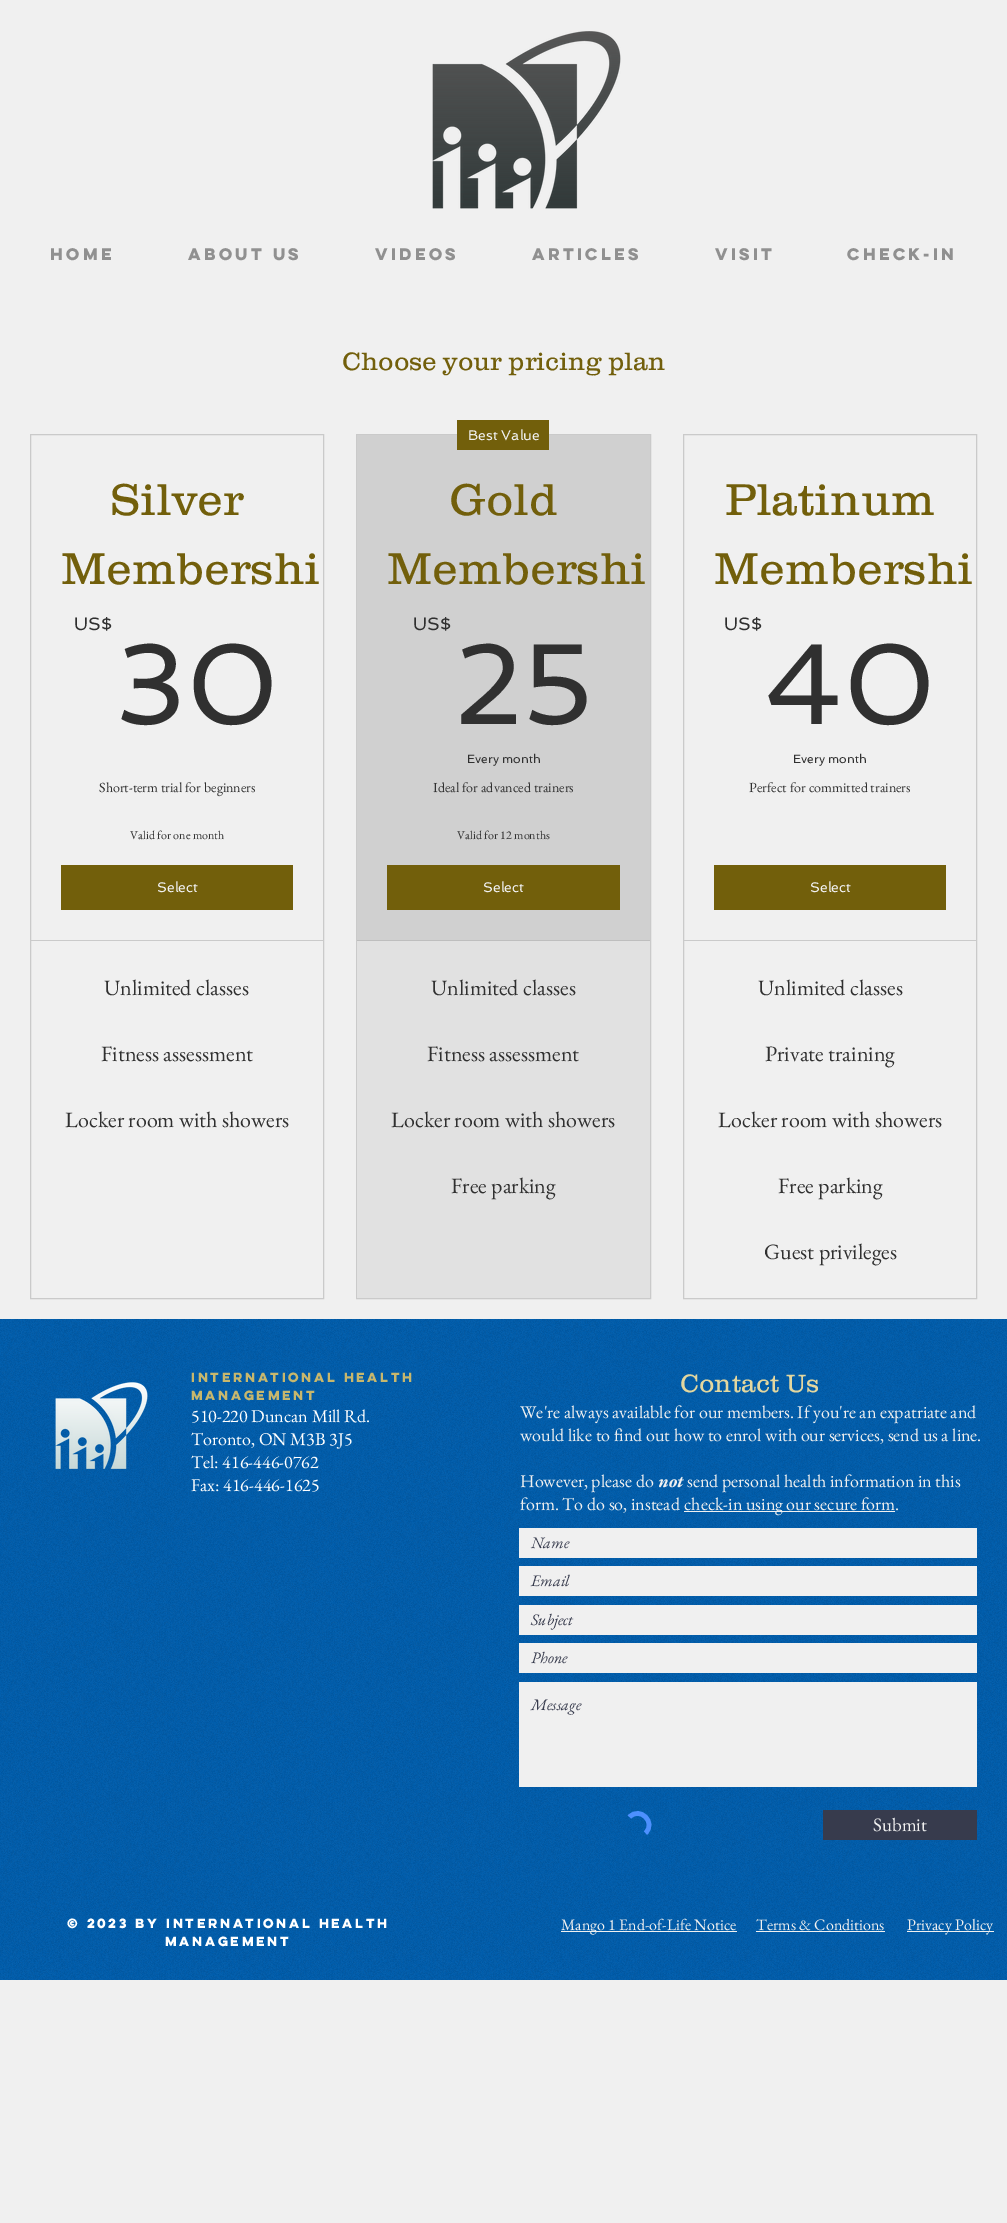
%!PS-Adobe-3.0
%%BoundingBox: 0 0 1007 2223
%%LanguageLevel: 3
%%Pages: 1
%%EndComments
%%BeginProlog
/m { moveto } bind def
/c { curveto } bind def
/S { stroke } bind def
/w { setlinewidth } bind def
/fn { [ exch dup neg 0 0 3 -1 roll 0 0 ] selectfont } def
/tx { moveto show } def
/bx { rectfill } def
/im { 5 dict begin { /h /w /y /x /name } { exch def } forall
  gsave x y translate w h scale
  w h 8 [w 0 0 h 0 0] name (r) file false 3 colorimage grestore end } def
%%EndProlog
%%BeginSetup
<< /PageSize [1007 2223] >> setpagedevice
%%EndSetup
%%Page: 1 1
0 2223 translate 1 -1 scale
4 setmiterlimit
0.941 setgray
0 0 1007 2223 bx
(image0.raw) 432 31 189 178 im
/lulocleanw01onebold-Bold 15 fn
0.565 setgray
(Home) 50 260 tx
(About Us) 188 260 tx
(Videos) 375 260 tx
(Articles) 532 260 tx
(Visit) 715 260 tx
(Check-in) 847 260 tx
/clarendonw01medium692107-Light 26 fn
0.447 0.373 0.043 setrgbcolor
(Choose your pricing plan) 342 370 tx
0.792 setgray
30.5 434.5 293 864 rectstroke
/clarendonw01medium692107-Light 46 fn
0.447 0.373 0.043 setrgbcolor
(Silver) 110 515 tx
(Membershi) 61 584 tx
/Spinnaker-Regular 18 fn
0.188 setgray
(US$) 74 630 tx
/Spinnaker-Regular 115 fn
(30) 115 724 tx
/EBGaramond-Regular 14 fn
(Short-term trial for beginners) 99 792 tx
/EBGaramond-Regular 12 fn
(Valid for one month) 130 839 tx
0.447 0.373 0.043 setrgbcolor
61 865 232 45 bx
/Spinnaker-Regular 14 fn
0.941 setgray
(Select) 157 892 tx
0.792 setgray
31 940 292 1 bx
/EBGaramond-Regular 22 fn
0.188 setgray
(Unlimited classes) 104 995 tx
(Fitness assessment) 101 1061 tx
(Locker room with showers) 65 1127 tx
0.792 setgray
356.5 434.5 294 864 rectstroke
0.816 setgray
357 435 293 505 bx
0.447 0.373 0.043 setrgbcolor
457 420 92 30 bx
/Spinnaker-Regular 14 fn
0.941 setgray
(Best Value) 468 440 tx
/clarendonw01medium692107-Light 46 fn
0.447 0.373 0.043 setrgbcolor
(Gold) 449 515 tx
(Membershi) 387 584 tx
/Spinnaker-Regular 18 fn
0.188 setgray
(US$) 413 630 tx
/Spinnaker-Regular 115 fn
(25) 453 724 tx
/Spinnaker-Regular 12 fn
(Every month) 467 763 tx
/EBGaramond-Regular 14 fn
(Ideal for advanced trainers) 433 792 tx
/EBGaramond-Regular 12 fn
(Valid for 12 months) 457 839 tx
0.447 0.373 0.043 setrgbcolor
387 865 233 45 bx
/Spinnaker-Regular 14 fn
0.941 setgray
(Select) 483 892 tx
0.882 setgray
357 941 293 357 bx
0.745 setgray
357 940 293 1 bx
/EBGaramond-Regular 22 fn
0.188 setgray
(Unlimited classes) 431 995 tx
(Fitness assessment) 427 1061 tx
(Locker room with showers) 391 1127 tx
(Free parking) 451 1193 tx
0.792 setgray
683.5 434.5 293 864 rectstroke
/clarendonw01medium692107-Light 46 fn
0.447 0.373 0.043 setrgbcolor
(Platinum) 725 515 tx
(Membershi) 714 584 tx
/Spinnaker-Regular 18 fn
0.188 setgray
(US$) 724 630 tx
/Spinnaker-Regular 115 fn
(40) 764 724 tx
/Spinnaker-Regular 12 fn
(Every month) 793 763 tx
/EBGaramond-Regular 14 fn
(Perfect for committed trainers) 749 792 tx
0.447 0.373 0.043 setrgbcolor
714 865 232 45 bx
/Spinnaker-Regular 14 fn
0.941 setgray
(Select) 810 892 tx
0.792 setgray
684 940 292 1 bx
/EBGaramond-Regular 22 fn
0.188 setgray
(Unlimited classes) 758 995 tx
(Private training) 765 1061 tx
(Locker room with showers) 718 1127 tx
(Free parking) 778 1193 tx
(Guest privileges) 764 1259 tx
0 0.365 0.675 setrgbcolor
0 1319 1007 661 bx
(image1.raw) 0 1319 1007 661 im
(image2.raw) 55 1382 93 87 im
/lulocleanw01onebold-Bold 12 fn
0.78 0.718 0.427 setrgbcolor
(International Health) 191 1382 tx
(Management) 191 1400 tx
/EBGaramond-Regular 18 fn
1 setgray
(510-220 Duncan Mill Rd.) 191 1422 tx
(Toronto, ON M3B 3J5) 191 1445 tx
(Tel: 416-446-0762) 191 1468 tx
(Fax: 416-446-1625) 191 1491 tx
/clarendonw01medium692107-Light 26 fn
0.89 0.843 0.624 setrgbcolor
(Contact Us) 680 1392 tx
/EBGaramond-Regular 18 fn
0.941 setgray
(We're always available for our members. If you're an expatriate and) 520 1418 tx
(would like to find out how to enrol with our services, send us a line.) 520 1441 tx
(However, please do) 520 1487 tx
/EBGaramond-BoldItalic 18 fn
(not) 658 1487 tx
/EBGaramond-Regular 18 fn
(send personal health information in this) 687 1487 tx
(form. To do so, instead) 520 1510 tx
684 1511 211 1 bx
(check-in using our secure form.) 684 1510 tx
519 1528 458 30 bx
/EBGaramond-Italic 16 fn
0.216 0.231 0.302 setrgbcolor
(Name) 531 1548 tx
0.941 setgray
519 1566 458 30 bx
0.216 0.231 0.302 setrgbcolor
(Email) 531 1586 tx
0.941 setgray
519 1605 458 30 bx
0.216 0.231 0.302 setrgbcolor
(Subject) 531 1625 tx
0.941 setgray
519 1643 458 30 bx
0.216 0.231 0.302 setrgbcolor
(Phone) 531 1663 tx
0.941 setgray
519 1682 458 105 bx
0.216 0.231 0.302 setrgbcolor
(Message) 531 1710 tx
0.302 0.565 0.996 setrgbcolor
4.6 w
629.5 1817 m 640 1806 656.5 1822.5 645.5 1833 c S
0.216 0.231 0.302 setrgbcolor
823 1810 154 30 bx
/EBGaramond-Regular 19 fn
0.941 setgray
(Submit) 873 1831 tx
/lulocleanw01onebold-Bold 12 fn
1 setgray
(© 2023 by International Health) 67 1928 tx
(Management) 165 1946 tx
0.941 setgray
561 1931 176 1 bx
/EBGaramond-Regular 16 fn
(Mango 1 End-of-Life Notice) 561 1930 tx
(Terms & Conditions) 756 1930 tx
756 1931 129 1 bx
907 1931 87 1 bx
(Privacy Policy) 907 1930 tx
showpage
%%EOF
